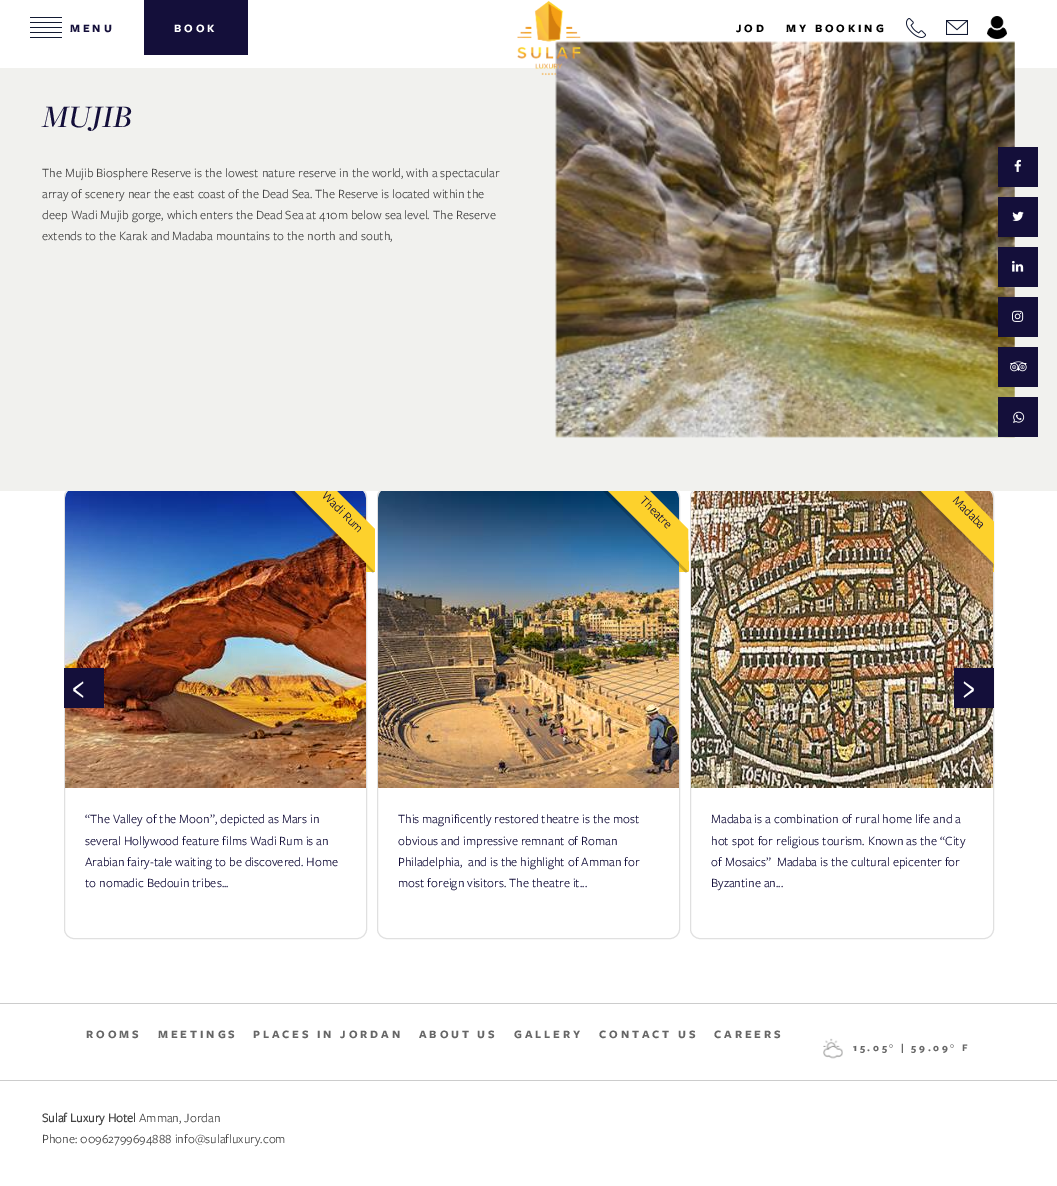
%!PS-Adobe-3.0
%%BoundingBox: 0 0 1057 1186
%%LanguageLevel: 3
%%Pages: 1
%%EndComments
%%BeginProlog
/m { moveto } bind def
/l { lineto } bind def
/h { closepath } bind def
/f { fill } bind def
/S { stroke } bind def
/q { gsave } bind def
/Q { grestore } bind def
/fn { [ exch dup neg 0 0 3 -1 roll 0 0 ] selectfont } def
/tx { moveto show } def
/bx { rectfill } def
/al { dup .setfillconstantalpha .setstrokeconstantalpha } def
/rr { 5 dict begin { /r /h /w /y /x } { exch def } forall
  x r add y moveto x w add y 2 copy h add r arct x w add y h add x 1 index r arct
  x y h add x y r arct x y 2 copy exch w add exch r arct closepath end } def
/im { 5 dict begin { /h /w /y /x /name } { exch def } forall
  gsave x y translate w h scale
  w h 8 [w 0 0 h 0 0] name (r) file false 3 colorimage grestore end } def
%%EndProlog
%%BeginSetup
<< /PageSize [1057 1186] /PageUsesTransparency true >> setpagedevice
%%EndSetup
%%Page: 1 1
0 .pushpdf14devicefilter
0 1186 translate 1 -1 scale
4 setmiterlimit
1 setgray
0 0 1057 1186 bx
(image0.raw) 30 17 32 21 im
/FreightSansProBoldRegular-Regular 11.75 fn
0.078 0.059 0.227 setrgbcolor
70 32 m 2.9 0 (MENU) ashow
144 0 104 55 bx
1 setgray
174 32 m 2.9 0 (BOOK) ashow
0.878 setgray
64.5 487.5 302 451 9.5 rr S
0.992 0.82 0.173 setrgbcolor
366 562 9 10 bx
(image6.raw) 65 491 301 297 im
0.2 al
0 setgray
284 481 m 282 483 l 373 573 l 375 571 l h f
1 al
0.992 0.82 0.173 setrgbcolor
375 572 m 284 480 l 326 480 l 375 529 l h f
/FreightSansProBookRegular-Regular 13 fn
0.078 0.059 0.227 setrgbcolor
q 321 496 translate 45 rotate 0 0 m (Wadi Rum) show Q
0.878 setgray
377.5 487.5 302 451 9.5 rr S
(image7.raw) 378 491 301 297 im
0.992 0.82 0.173 setrgbcolor
679 562 9 10 bx
0.2 al
0 setgray
688 571 m 597 481 l 595 483 l 686 573 l h f
1 al
0.992 0.82 0.173 setrgbcolor
689 572 m 597 480 l 639 480 l 688 529 l h f
0.878 setgray
690.5 487.5 303 451 9.5 rr S
(image8.raw) 691 491 302 297 im
0.992 0.82 0.173 setrgbcolor
993 560 1 12 bx
q
64 487 930 452 rectclip
0.2 al
0 setgray
1001 571 m 911 481 l 909 483 l 999 573 l h f
1 al
0.992 0.82 0.173 setrgbcolor
1002 572 m 910 480 l 953 480 l 1001 529 l h f
Q
0.945 0.945 0.933 setrgbcolor
0 68 1057 423 bx
(image5.raw) 555 41 460 397 im
(image1.raw) 517 0 64 76 im
/FreightSansProBoldRegular-Regular 11.75 fn
0 setgray
736 32 m 2.9 0 (JOD) ashow
786 32 m 2.9 0 (MY BOOKING) ashow
(image2.raw) 906 18 20 20 im
(image3.raw) 946 20 22 15 im
(image4.raw) 987 16 20 23 im
/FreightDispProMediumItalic-Regular 32.5 fn
0.078 0.059 0.227 setrgbcolor
(MUJIB) 42 127 tx
/FreightSansProBookRegular-Regular 13 fn
0.267 setgray
(The Mujib Biosphere Reserve is the lowest nature reserve in the world, with a spectacular) 42 177 tx
(array of scenery near the east coast of the Dead Sea. The Reserve is located within the) 42 198 tx
(deep Wadi Mujib gorge, which enters the Dead Sea at 410m below sea level. The Reserve) 42 219 tx
(extends to the Karak and Madaba mountains to the north and south,) 42 240 tx
0.078 0.059 0.227 setrgbcolor
(“The Valley of the Moon”, depicted as Mars in) 85 823 tx
(several Hollywood feature films Wadi Rum is an) 85 845 tx
(Arabian fairy-tale waiting to be discovered. Home) 85 866 tx
(to nomadic Bedouin tribes...) 85 887 tx
q 639 501 translate 45 rotate 0 0 m (Theatre) show Q
(This magnificently restored theatre is the most) 398 823 tx
(obvious and impressive remnant of Roman) 398 845 tx
(Philadelphia,  and is the highlight of Amman for) 398 866 tx
(most foreign visitors. The theatre it...) 398 887 tx
q 952 501 translate 45 rotate 0 0 m (Madaba) show Q
(Madaba is a combination of rural home life and a) 711 823 tx
(hot spot for religious tourism. Known as the “City) 711 845 tx
(of Mosaics”  Madaba is the cultural epicenter for) 711 866 tx
(Byzantine an...) 711 887 tx
64 668 40 40 bx
/FreightSansProBookRegular-Regular 40 fn
1 setgray
72 699 m 10 0 (‹) ashow
0.078 0.059 0.227 setrgbcolor
954 668 40 40 bx
1 setgray
962 699 m 10 0 (›) ashow
0.8 setgray
0 1003 1057 1 bx
0 1080 1057 1 bx
/FreightSansProBoldRegular-Regular 11.75 fn
0.4 setgray
86 1038 m 2.9 0 (ROOMS) ashow
158 1038 m 2.9 0 (MEETINGS) ashow
253 1038 m 2.9 0 (PLACES IN JORDAN) ashow
419 1038 m 2.9 0 (ABOUT US) ashow
514 1038 m 2.9 0 (GALLERY) ashow
599 1038 m 2.9 0 (CONTACT US) ashow
714 1038 m 2.9 0 (CAREERS) ashow
(image9.raw) 823 1038 20 21 im
/FreightSansProBoldRegular-Regular 10.5 fn
853 1051 m 2.6 0 (15.05° | 59.09° F) ashow
/FreightSansProBookRegular-Bold 13 fn
0.267 setgray
(Sulaf Luxury Hotel) 42 1122 tx
/FreightSansProBookRegular-Regular 13 fn
(Amman, Jordan) 139 1122 tx
(Phone: 00962799694888 info@sulafluxury.com) 42 1143 tx
0.078 0.059 0.227 setrgbcolor
998 147 40 40 bx
(image10.raw) 1014 159 7 13 im
998 197 40 40 bx
(image11.raw) 1012 211 12 10 im
998 247 40 40 bx
(image12.raw) 1012 260 12 12 im
998 297 40 40 bx
(image13.raw) 1012 310 12 12 im
998 347 40 40 bx
(image14.raw) 1010 361 17 11 im
998 397 40 40 bx
(image15.raw) 1013 411 12 12 im
.poppdf14devicefilter showpage
%%EOF
